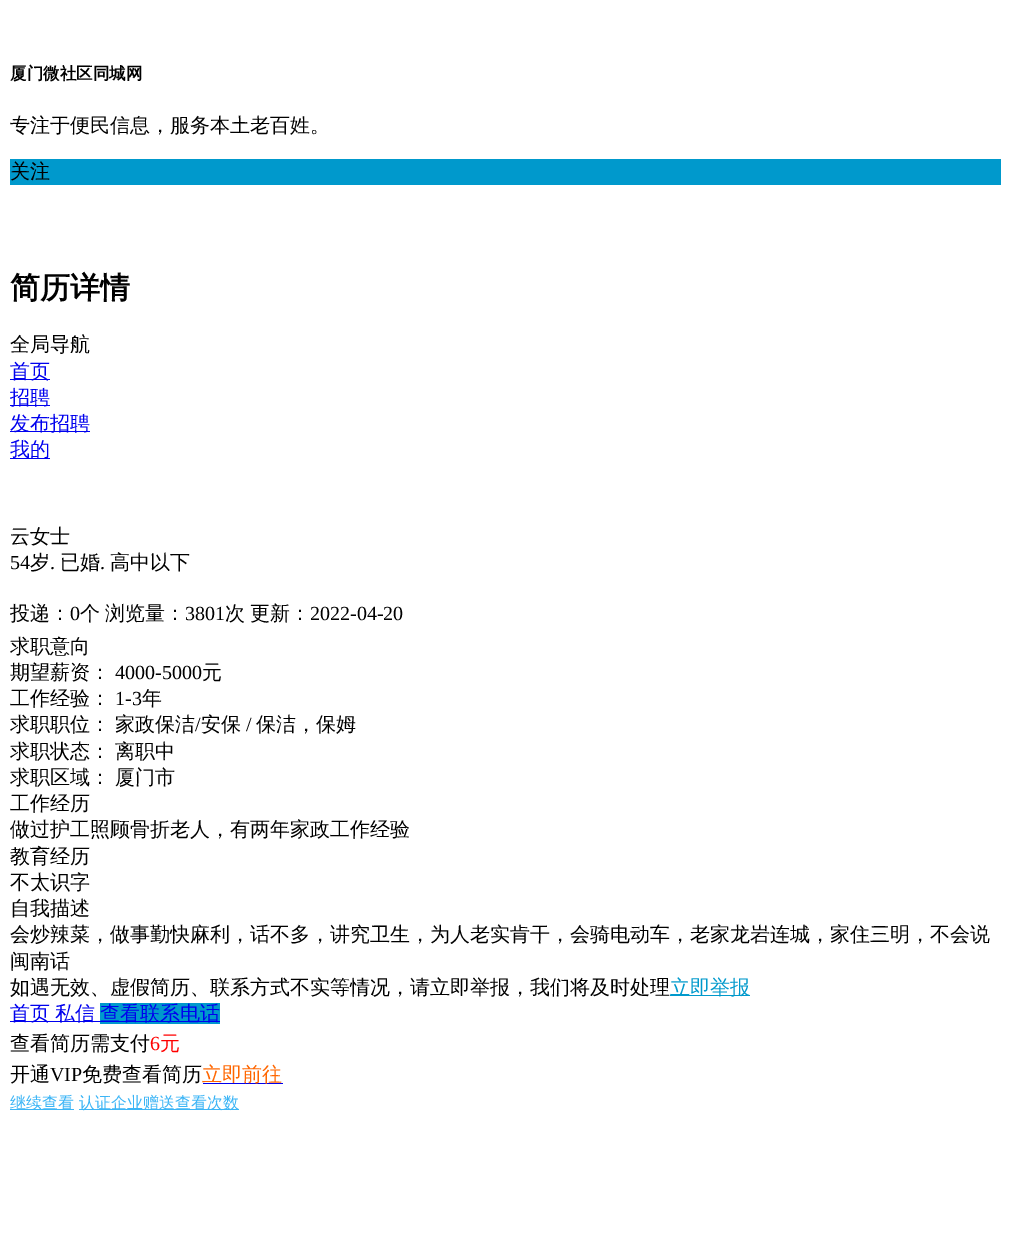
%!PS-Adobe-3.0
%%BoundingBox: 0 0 1011 1247
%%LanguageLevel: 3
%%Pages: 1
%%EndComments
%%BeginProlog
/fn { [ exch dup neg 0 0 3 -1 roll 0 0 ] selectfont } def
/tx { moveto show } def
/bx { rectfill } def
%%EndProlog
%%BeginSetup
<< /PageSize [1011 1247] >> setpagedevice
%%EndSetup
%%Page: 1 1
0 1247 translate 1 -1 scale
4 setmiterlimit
1 setgray
0 0 1011 1247 bx
/WenQuanYiZenHei-Bold 16.5 fn
0 setgray
(厦门微社区同城网) 10 79 tx
/WenQuanYiZenHei-Medium 20 fn
(专注于便民信息，服务本土老百姓。) 10 132 tx
0 0.6 0.8 setrgbcolor
10 159 991 26 bx
0 setgray
(关注) 10 178 tx
/WenQuanYiZenHei-Bold 30 fn
(简历详情) 10 298 tx
/WenQuanYiZenHei-Medium 20 fn
(全局导航) 10 351 tx
0 0 0.933 setrgbcolor
10 379 40 1 bx
(首页) 10 378 tx
10 405 40 1 bx
(招聘) 10 404 tx
10 431 80 1 bx
(发布招聘) 10 430 tx
10 458 40 1 bx
(我的) 10 456 tx
0 setgray
(云女士) 10 543 tx
/LiberationSerif-Regular 20 fn
(54) 10 569 tx
/WenQuanYiZenHei-Medium 20 fn
(岁) 30 569 tx
/LiberationSerif-Regular 20 fn
(.) 50 569 tx
/WenQuanYiZenHei-Medium 20 fn
(已婚) 60 569 tx
/LiberationSerif-Regular 20 fn
(.) 100 569 tx
/WenQuanYiZenHei-Medium 20 fn
(高中以下) 110 569 tx
(投递：) 10 620 tx
/LiberationSerif-Regular 20 fn
(0) 70 620 tx
/WenQuanYiZenHei-Medium 20 fn
(个) 80 620 tx
(浏览量：) 105 620 tx
/LiberationSerif-Regular 20 fn
(3801) 185 620 tx
/WenQuanYiZenHei-Medium 20 fn
(次) 225 620 tx
(更新：) 250 620 tx
/LiberationSerif-Regular 20 fn
(2022-04-20) 310 620 tx
/WenQuanYiZenHei-Medium 20 fn
(求职意向) 10 653 tx
(期望薪资：) 10 679 tx
/LiberationSerif-Regular 20 fn
(4000-5000) 115 679 tx
/WenQuanYiZenHei-Medium 20 fn
(元) 202 679 tx
(工作经验：) 10 705 tx
/LiberationSerif-Regular 20 fn
(1-3) 115 705 tx
/WenQuanYiZenHei-Medium 20 fn
(年) 142 705 tx
(求职职位：) 10 731 tx
(家政保洁) 115 731 tx
/LiberationSerif-Regular 20 fn
(/) 195 731 tx
/WenQuanYiZenHei-Medium 20 fn
(安保) 201 731 tx
/LiberationSerif-Regular 20 fn
(/) 246 731 tx
/WenQuanYiZenHei-Medium 20 fn
(保洁，保姆) 256 731 tx
(求职状态：) 10 758 tx
(离职中) 115 758 tx
(求职区域：) 10 784 tx
(厦门市) 115 784 tx
(工作经历) 10 810 tx
(做过护工照顾骨折老人，有两年家政工作经验) 10 836 tx
(教育经历) 10 863 tx
(不太识字) 10 889 tx
(自我描述) 10 915 tx
(会炒辣菜，做事勤快麻利，话不多，讲究卫生，为人老实肯干，会骑电动车，老家龙岩连城，家住三明，不会说) 10 941 tx
(闽南话) 10 968 tx
(如遇无效、虚假简历、联系方式不实等情况，请立即举报，我们将及时处理) 10 994 tx
0 0.6 0.8 setrgbcolor
670 995 80 1 bx
(立即举报) 670 994 tx
0 0 0.933 setrgbcolor
10 1021 90 1 bx
(首页) 10 1020 tx
(私信) 55 1020 tx
0 0.6 0.8 setrgbcolor
100 1003 120 21 bx
0 0 0.933 setrgbcolor
100 1021 120 1 bx
(查看联系电话) 100 1020 tx
0 setgray
(查看简历需支付) 10 1050 tx
/LiberationSerif-Regular 20 fn
1 0 0 setrgbcolor
(6) 150 1050 tx
/WenQuanYiZenHei-Medium 20 fn
(元) 160 1050 tx
0 setgray
(开通) 10 1081 tx
/LiberationSerif-Regular 20 fn
(VIP) 50 1081 tx
/WenQuanYiZenHei-Medium 20 fn
(免费查看简历) 82 1081 tx
0 0 0.933 setrgbcolor
203 1083 80 1 bx
1 0.4 0 setrgbcolor
(立即前往) 202 1081 tx
0.235 0.71 0.965 setrgbcolor
10 1109 64 1 bx
/WenQuanYiZenHei-Medium 16 fn
(继续查看) 10 1108 tx
79 1109 160 1 bx
(认证企业赠送查看次数) 79 1108 tx
showpage
%%EOF
